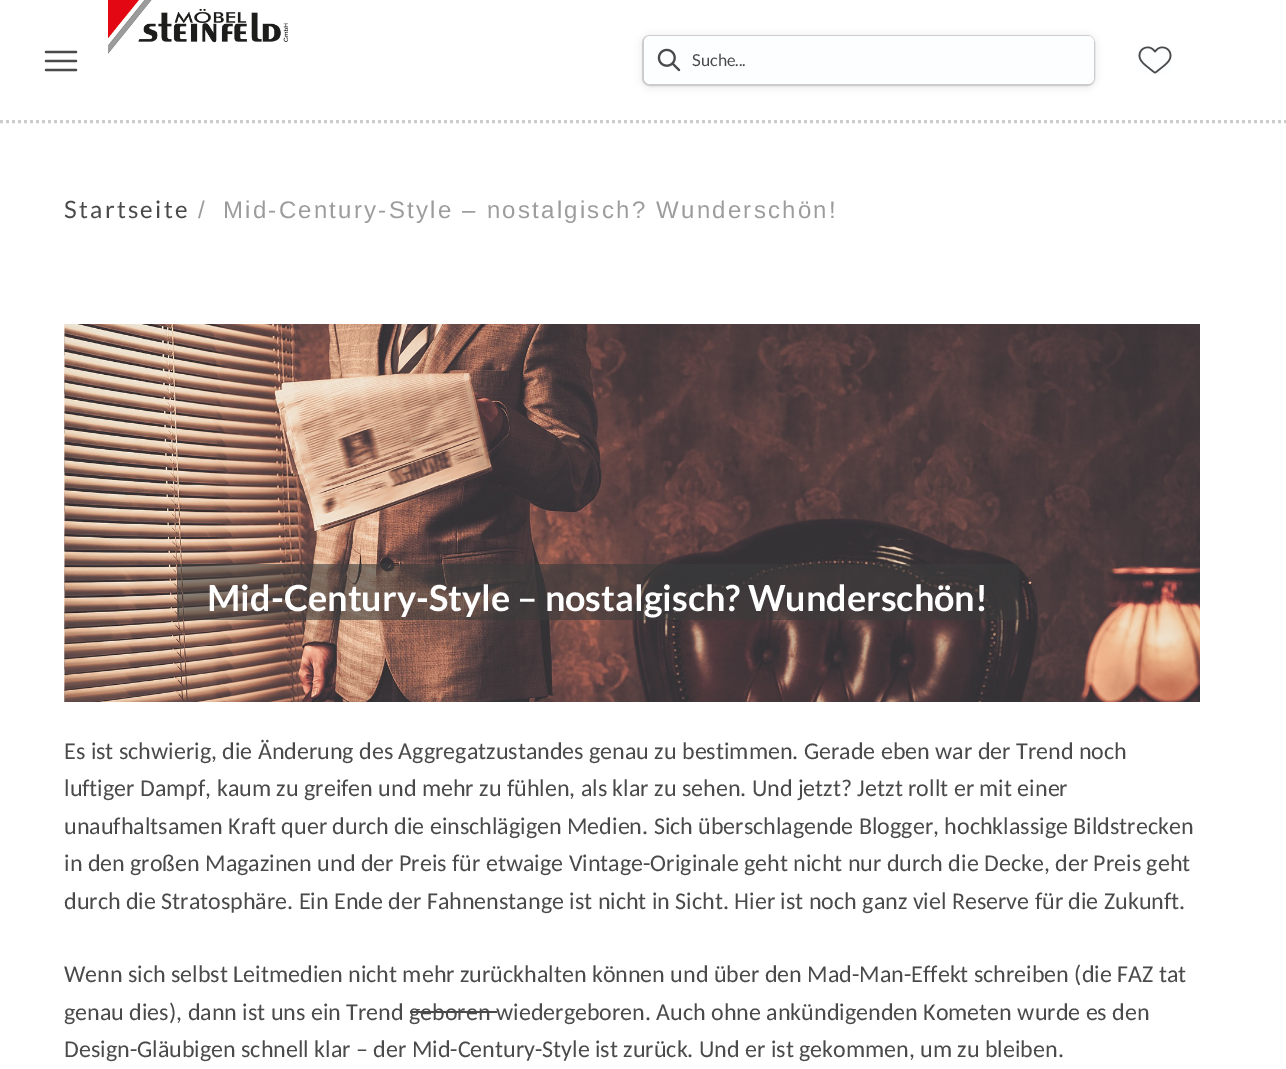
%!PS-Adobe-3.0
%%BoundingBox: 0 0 1286 1069
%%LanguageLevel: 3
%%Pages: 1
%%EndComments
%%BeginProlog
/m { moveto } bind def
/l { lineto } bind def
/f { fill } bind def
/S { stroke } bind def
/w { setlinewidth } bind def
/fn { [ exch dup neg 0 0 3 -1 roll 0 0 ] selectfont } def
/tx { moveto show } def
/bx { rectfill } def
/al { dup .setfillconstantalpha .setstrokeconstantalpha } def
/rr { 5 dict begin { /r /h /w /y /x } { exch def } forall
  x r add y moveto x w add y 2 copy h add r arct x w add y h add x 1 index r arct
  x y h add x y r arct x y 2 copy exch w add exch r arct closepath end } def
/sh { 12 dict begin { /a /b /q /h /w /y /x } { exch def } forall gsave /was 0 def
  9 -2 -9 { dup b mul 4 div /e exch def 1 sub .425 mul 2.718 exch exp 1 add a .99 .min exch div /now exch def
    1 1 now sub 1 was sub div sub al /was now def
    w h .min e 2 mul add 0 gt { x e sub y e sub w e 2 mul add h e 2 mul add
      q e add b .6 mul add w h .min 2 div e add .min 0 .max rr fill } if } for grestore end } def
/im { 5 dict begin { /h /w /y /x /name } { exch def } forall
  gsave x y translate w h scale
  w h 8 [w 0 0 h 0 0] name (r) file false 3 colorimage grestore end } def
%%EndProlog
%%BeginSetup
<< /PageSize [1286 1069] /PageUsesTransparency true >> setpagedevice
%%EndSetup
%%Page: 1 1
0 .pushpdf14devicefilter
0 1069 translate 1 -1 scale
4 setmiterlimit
1 setgray
0 0 1286 1069 bx
0.8 setgray
3 w
[3 3] 0 setdash
0 121.5 m 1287 121.5 l S
(image0.raw) 108 0 180 54 im
0.29 setgray
2.2 w
1 setlinecap
[] 0 setdash
46 61 m 76 61 l 46 52 m 76 52 l 46 70 m 76 70 l S
0 setgray
642 36 453 51 8 4 0.1 sh
0.8 setgray
2 w
0 setlinecap
643 36 451 49 7 rr S
0.992 0.996 1 setrgbcolor
644 36 450 48 6 rr f
(image1.raw) 657 48 24 24 im
/Lato-Regular 16.5 fn
0.29 setgray
(Suche...) 692 66 tx
(image2.raw) 1138 46 34 28 im
/Lato-Regular 24 fn
64 218 m 2.25 0 (Startseite) ashow
/LiberationSans-Regular 24 fn
0.612 setgray
198 218 m 2.25 0 (/) ashow
223 218 m 2.25 0 (Mid-Century-Style – nostalgisch? Wunderschön!) ashow
(image3.raw) 64 324 1 378 im
(image4.raw) 64 324 1136 378 im
0.6 al
0.231 setgray
177 564 842 56 bx
/Lato-Bold 36 fn
1 al
1 setgray
(Mid-Century-Style – nostalgisch? Wunderschön!) 207 611 tx
/Carlito-Regular 24 fn
0.29 setgray
(Es ist schwierig, die Änderung des Aggregatzustandes genau zu bestimmen. Gerade eben war der Trend noch) 64 759 tx
(luftiger Dampf, kaum zu greifen und mehr zu fühlen, als klar zu sehen. Und jetzt? Jetzt rollt er mit einer) 64 796 tx
(unaufhaltsamen Kraft quer durch die einschlägigen Medien. Sich überschlagende Blogger, hochklassige Bildstrecken) 64 834 tx
(in den großen Magazinen und der Preis für etwaige Vintage-Originale geht nicht nur durch die Decke, der Preis geht) 64 871 tx
(durch die Stratosphäre. Ein Ende der Fahnenstange ist nicht in Sicht. Hier ist noch ganz viel Reserve für die Zukunft.) 64 909 tx
(Wenn sich selbst Leitmedien nicht mehr zurückhalten können und über den Mad-Man-Effekt schreiben \(die FAZ tat) 64 982 tx
(genau dies\), dann ist uns ein Trend geboren) 64 1020 tx
410 1011 87 2 bx
(wiedergeboren. Auch ohne ankündigenden Kometen wurde es den) 496 1020 tx
(Design-Gläubigen schnell klar – der Mid-Century-Style ist zurück. Und er ist gekommen, um zu bleiben.) 64 1057 tx
.poppdf14devicefilter showpage
%%EOF
